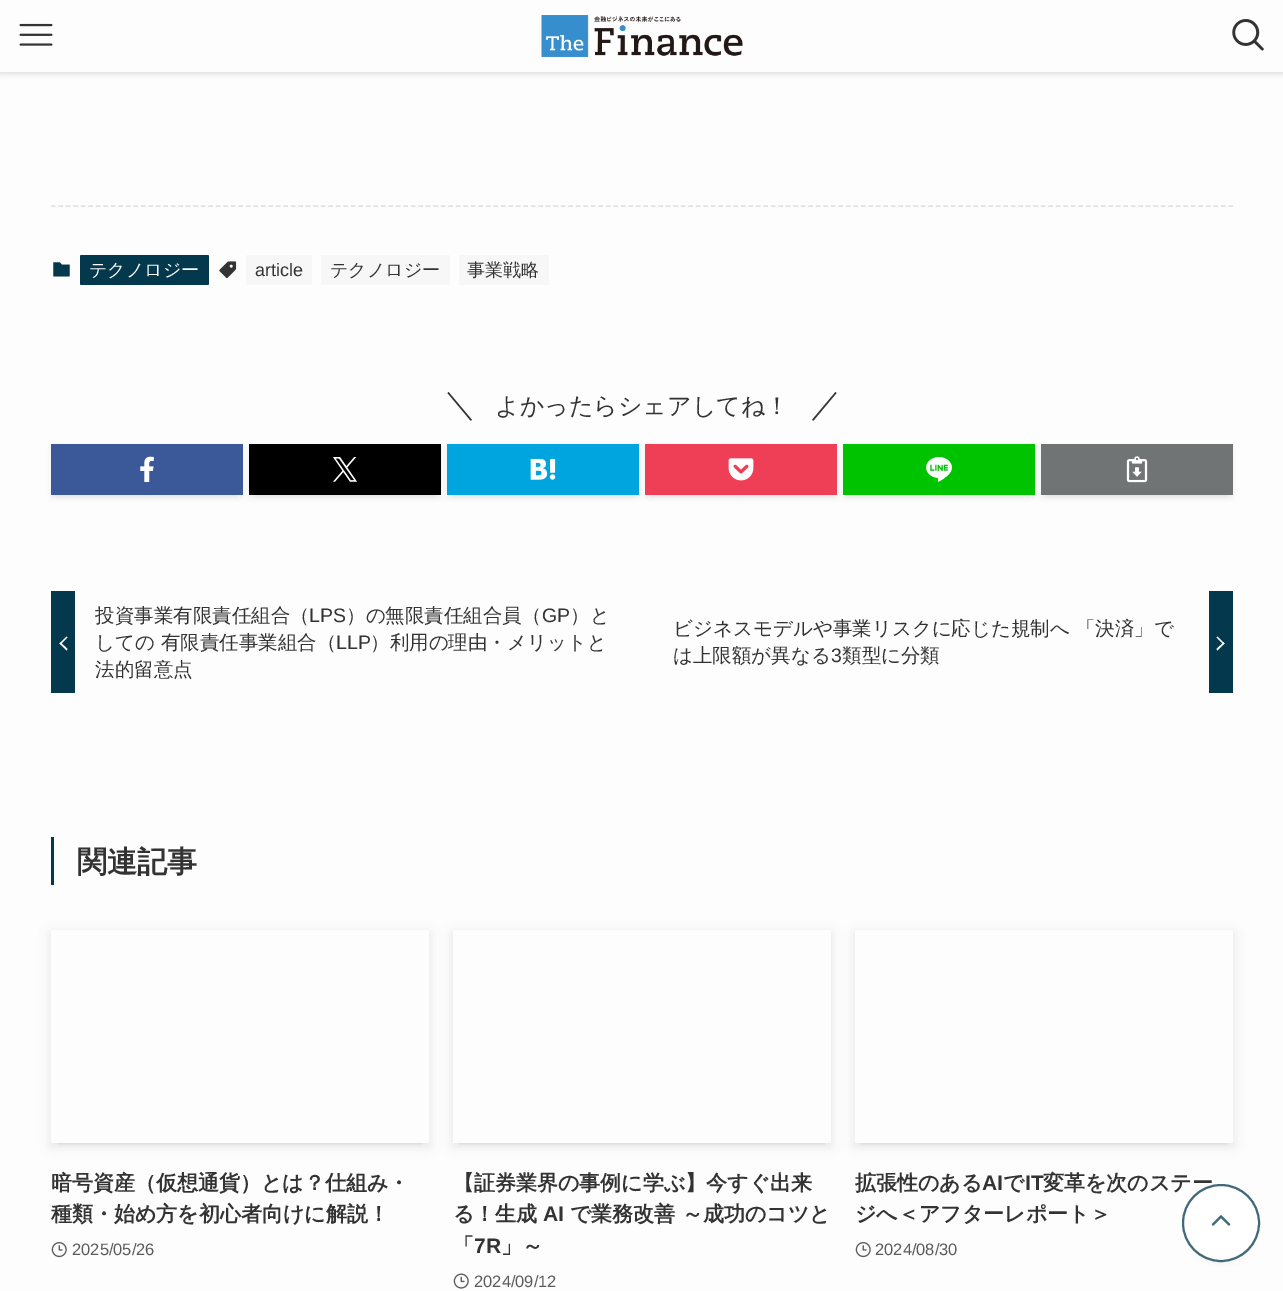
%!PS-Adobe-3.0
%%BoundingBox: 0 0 1283 1291
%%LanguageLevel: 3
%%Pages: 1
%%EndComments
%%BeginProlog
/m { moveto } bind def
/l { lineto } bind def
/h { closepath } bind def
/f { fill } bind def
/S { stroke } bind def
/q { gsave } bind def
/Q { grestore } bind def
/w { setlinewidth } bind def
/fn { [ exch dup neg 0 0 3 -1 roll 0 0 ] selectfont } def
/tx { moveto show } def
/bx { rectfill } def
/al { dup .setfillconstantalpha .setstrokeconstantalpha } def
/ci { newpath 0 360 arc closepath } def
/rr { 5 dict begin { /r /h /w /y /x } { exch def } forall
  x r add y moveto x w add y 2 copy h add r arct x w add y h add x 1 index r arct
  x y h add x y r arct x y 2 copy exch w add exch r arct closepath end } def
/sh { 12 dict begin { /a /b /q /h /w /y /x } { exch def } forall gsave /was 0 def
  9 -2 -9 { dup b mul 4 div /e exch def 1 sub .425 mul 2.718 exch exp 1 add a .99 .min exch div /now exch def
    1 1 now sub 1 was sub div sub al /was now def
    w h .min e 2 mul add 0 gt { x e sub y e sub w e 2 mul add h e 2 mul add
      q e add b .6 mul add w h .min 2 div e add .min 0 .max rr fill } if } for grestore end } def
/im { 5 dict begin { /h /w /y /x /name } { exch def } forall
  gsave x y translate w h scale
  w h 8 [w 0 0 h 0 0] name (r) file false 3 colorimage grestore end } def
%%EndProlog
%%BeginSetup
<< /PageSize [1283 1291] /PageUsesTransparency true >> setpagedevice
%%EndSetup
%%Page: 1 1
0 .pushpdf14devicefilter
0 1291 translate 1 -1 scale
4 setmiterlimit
0.992 setgray
0 0 1283 1291 bx
0 setgray
0 2 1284 72 0 3 0.12 sh
0.992 setgray
0 0 1283 72 bx
(image0.raw) 19 23 34 23 im
(image1.raw) 541 15 202 42 im
(image2.raw) 1232 19 32 32 im
0.886 setgray
1.5 w
[4.5 3] 0 setdash
51 206 m 1233 206 l S
(image3.raw) 53 262 17 15 im
0.016 0.22 0.298 setrgbcolor
80 255 129 30 1.5 rr f
/WenQuanYiZenHei-Medium 18 fn
1 setgray
(テクノロジー) 89 276 tx
(image4.raw) 219 261 18 18 im
0.969 setgray
246 255 66 30 1.5 rr f
/LiberationSans-Regular 18 fn
0.2 setgray
(article) 255 276 tx
0.969 setgray
321 255 129 30 1.5 rr f
/WenQuanYiZenHei-Medium 18 fn
0.2 setgray
(テクノロジー) 330 276 tx
0.969 setgray
459 255 90 30 1.5 rr f
0.2 setgray
(事業戦略) 467 276 tx
447.5 393 m 448.5 392 l 472 420 l 470.5 420.5 l h f
/WenQuanYiZenHei-Medium 24 fn
(よかったらシェアしてね！) 495 414 tx
835.5 392 m 836.5 393 l 813.5 420.5 l 812 420 l h f
0 setgray
57 456 180 39 0 3 0.1 sh
51 447 192 51 0 3 0.05 sh
0.231 0.349 0.596 setrgbcolor
51 444 192 51 bx
(image5.raw) 140 456 14 26 im
0 setgray
255 456 180 39 0 3 0.1 sh
249 447 192 51 0 3 0.05 sh
249 444 192 51 bx
(image6.raw) 333 457 24 25 im
453 456 180 39 0 3 0.1 sh
447 447 192 51 0 3 0.05 sh
0 0.643 0.871 setrgbcolor
447 444 192 51 bx
(image7.raw) 530 458 26 22 im
0 setgray
651 456 180 39 0 3 0.1 sh
645 447 192 51 0 3 0.05 sh
0.937 0.247 0.337 setrgbcolor
645 444 192 51 bx
(image8.raw) 728 458 26 23 im
0 setgray
849 456 180 39 0 3 0.1 sh
843 447 192 51 0 3 0.05 sh
0 0.765 0 setrgbcolor
843 444 192 51 bx
(image9.raw) 926 457 26 25 im
0 setgray
1047 456 180 39 0 3 0.1 sh
1041 447 192 51 0 3 0.05 sh
0.443 0.455 0.459 setrgbcolor
1041 444 192 51 bx
(image10.raw) 1126 456 22 27 im
0.016 0.22 0.298 setrgbcolor
51 591 24 102 bx
1 setgray
60.5 642.5 m 67.5 649 l 66.5 650.5 l 59.5 643.5 l h f
66.5 636.5 m 67.5 637.5 l 60.5 644.5 l 59.5 643.5 l h f
/WenQuanYiZenHei-Medium 19.5 fn
0.2 setgray
(投資事業有限責任組合（) 95 622 tx
/LiberationSans-Regular 19.5 fn
(LPS) 309 622 tx
/WenQuanYiZenHei-Medium 19.5 fn
(）の無限責任組合員（) 346 622 tx
/LiberationSans-Regular 19.5 fn
(GP) 542 622 tx
/WenQuanYiZenHei-Medium 19.5 fn
(）と) 570 622 tx
(しての 有限責任事業組合（) 95 649 tx
/LiberationSans-Regular 19.5 fn
(LLP) 336 649 tx
/WenQuanYiZenHei-Medium 19.5 fn
(）利用の理由・メリットと) 370 649 tx
(法的留意点) 95 676 tx
0.016 0.22 0.298 setrgbcolor
1209 591 24 102 bx
0.2 setgray
(ビジネスモデルや事業リスクに応じた規制へ 「決済」で) 673 635 tx
(は上限額が異なる) 673 662 tx
/LiberationSans-Regular 19.5 fn
(3) 831 662 tx
/WenQuanYiZenHei-Medium 19.5 fn
(類型に分類) 842 662 tx
1 setgray
1216.5 637.5 m 1217.5 636.5 l 1224.5 643.5 l 1223.5 644.5 l h f
1216.5 649 m 1223.5 642.5 l 1224.5 643.5 l 1217.5 650.5 l h f
0.016 0.22 0.298 setrgbcolor
51 837 3 48 bx
/WenQuanYiZenHei-Bold 30 fn
0.2 setgray
(関連記事) 77 872 tx
q
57 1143 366 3 rectclip
0 setgray
57 942 366 201 0 3 0.1 sh
Q
q
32 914 m 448 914 l 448 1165 l 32 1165 l h 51 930 m 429 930 l 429 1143 l 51 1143 l h eoclip newpath
0 setgray
51 933 378 213 0 6 0.1 sh
Q
/WenQuanYiZenHei-Bold 21 fn
(暗号資産（仮想通貨）とは？仕組み・) 51 1190 tx
(種類・始め方を初心者向けに解説！) 51 1221 tx
(image11.raw) 51 1242 16 16 im
/LiberationSans-Regular 16.5 fn
0.357 setgray
(2025/05/26) 72 1255 tx
q
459 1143 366 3 rectclip
0 setgray
459 942 366 201 0 3 0.1 sh
Q
q
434 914 m 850 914 l 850 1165 l 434 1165 l h 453 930 m 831 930 l 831 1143 l 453 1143 l h eoclip newpath
0 setgray
453 933 378 213 0 6 0.1 sh
Q
/WenQuanYiZenHei-Bold 21 fn
0.2 setgray
(【証券業界の事例に学ぶ】今すぐ出来) 453 1190 tx
(る！生成) 453 1221 tx
/LiberationSans-Bold 21 fn
(AI) 543 1221 tx
/WenQuanYiZenHei-Bold 21 fn
(で業務改善 ～成功のコツと) 570 1221 tx
(「) 453 1253 tx
/LiberationSans-Bold 21 fn
(7R) 474 1253 tx
/WenQuanYiZenHei-Bold 21 fn
(」～) 501 1253 tx
(image12.raw) 453 1273 16 16 im
/LiberationSans-Regular 16.5 fn
0.357 setgray
(2024/09/12) 474 1287 tx
q
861 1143 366 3 rectclip
0 setgray
861 942 366 201 0 3 0.1 sh
Q
q
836 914 m 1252 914 l 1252 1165 l 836 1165 l h 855 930 m 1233 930 l 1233 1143 l 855 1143 l h eoclip newpath
0 setgray
855 933 378 213 0 6 0.1 sh
Q
/WenQuanYiZenHei-Bold 21 fn
0.2 setgray
(拡張性のある) 855 1190 tx
/LiberationSans-Bold 21 fn
(AI) 982 1190 tx
/WenQuanYiZenHei-Bold 21 fn
(で) 1003 1190 tx
/LiberationSans-Bold 21 fn
(IT) 1025 1190 tx
/WenQuanYiZenHei-Bold 21 fn
(変革を次のステー) 1043 1190 tx
(ジへ＜アフターレポート＞) 855 1221 tx
(image11.raw) 855 1242 16 16 im
/LiberationSans-Regular 16.5 fn
0.357 setgray
(2024/08/30) 875 1255 tx
0.247 setgray
1188 1196 66 66 33 3 0.1 sh
1 setgray
1221 1223 38 ci q f Q
0.259 0.412 0.471 setrgbcolor
2 w
[] 0 setdash
S
(image13.raw) 1211 1215 20 11 im
.poppdf14devicefilter showpage
%%EOF
